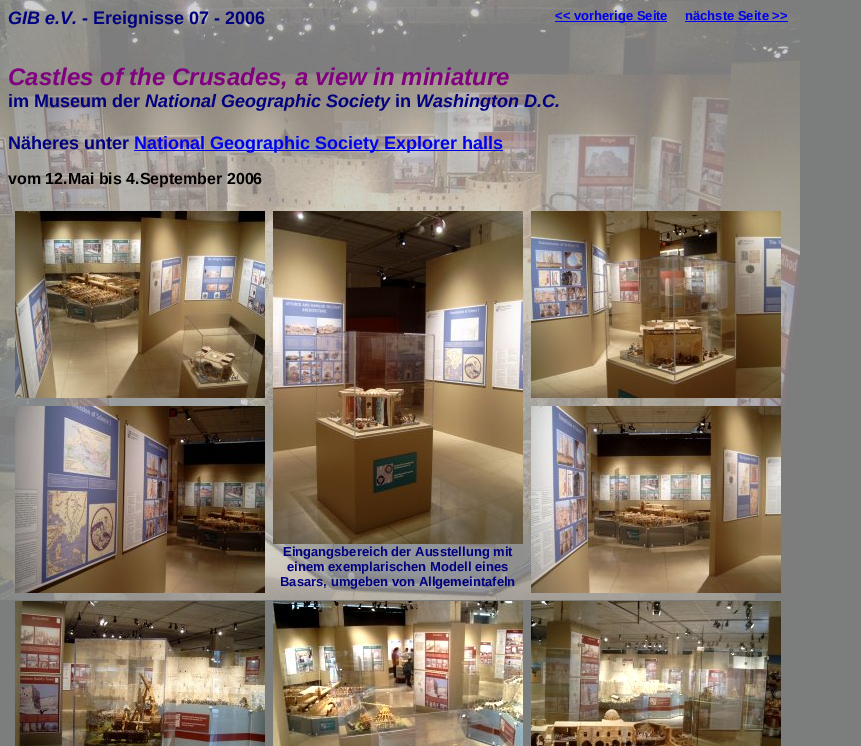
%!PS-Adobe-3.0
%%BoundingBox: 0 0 861 746
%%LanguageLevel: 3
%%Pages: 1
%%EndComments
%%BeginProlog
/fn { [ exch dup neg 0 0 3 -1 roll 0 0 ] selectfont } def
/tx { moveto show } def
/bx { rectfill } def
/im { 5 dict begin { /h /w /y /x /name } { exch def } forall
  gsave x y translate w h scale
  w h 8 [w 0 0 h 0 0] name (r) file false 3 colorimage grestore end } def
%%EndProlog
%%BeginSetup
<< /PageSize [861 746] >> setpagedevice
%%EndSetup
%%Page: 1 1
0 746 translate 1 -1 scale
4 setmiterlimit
0.486 0.49 0.49 setrgbcolor
0 0 861 746 bx
(image0.raw) 0 0 800 600 im
/LiberationSans-BoldItalic 18 fn
0 0 0.502 setrgbcolor
(GIB e.V.) 8 24 tx
/LiberationSans-Bold 18 fn
(- Ereignisse 07 - 2006) 82 24 tx
0 0 0.933 setrgbcolor
555 21 112 1 bx
/LiberationSans-Bold 13 fn
(<< vorherige Seite) 555 20 tx
(nächste Seite >>) 685 20 tx
685 21 103 1 bx
/LiberationSans-BoldItalic 24 fn
0.502 0 0.502 setrgbcolor
(Castles of the Crusades, a view in miniature) 8 85 tx
/LiberationSans-Bold 18 fn
0 0 0.502 setrgbcolor
(im Museum der) 8 107 tx
/LiberationSans-BoldItalic 18 fn
(National Geographic Society) 145 107 tx
/LiberationSans-Bold 18 fn
(in) 395 107 tx
/LiberationSans-BoldItalic 18 fn
(Washington D.C.) 416 107 tx
/LiberationSans-Bold 18 fn
(Näheres unter) 8 149 tx
0 0 0.933 setrgbcolor
134 150 369 1 bx
(National Geographic Society Explorer halls) 134 149 tx
/LiberationSans-Bold 16 fn
0 setgray
(vom 12.Mai bis 4.September 2006) 8 184 tx
(image1.raw) 15 406 250 187 im
(image2.raw) 531 406 250 187 im
(image3.raw) 15 211 250 187 im
(image4.raw) 531 211 250 187 im
(image5.raw) 273 211 250 333 im
/LiberationSans-Bold 13 fn
0 0 0.502 setrgbcolor
(Eingangsbereich der Ausstellung mit) 283 556 tx
(einem exemplarischen Modell eines) 287 571 tx
(Basars, umgeben von Allgemeintafeln) 280 586 tx
(image6.raw) 15 601 250 145 im
(image7.raw) 273 601 250 145 im
(image8.raw) 531 601 250 145 im
showpage
%%EOF
